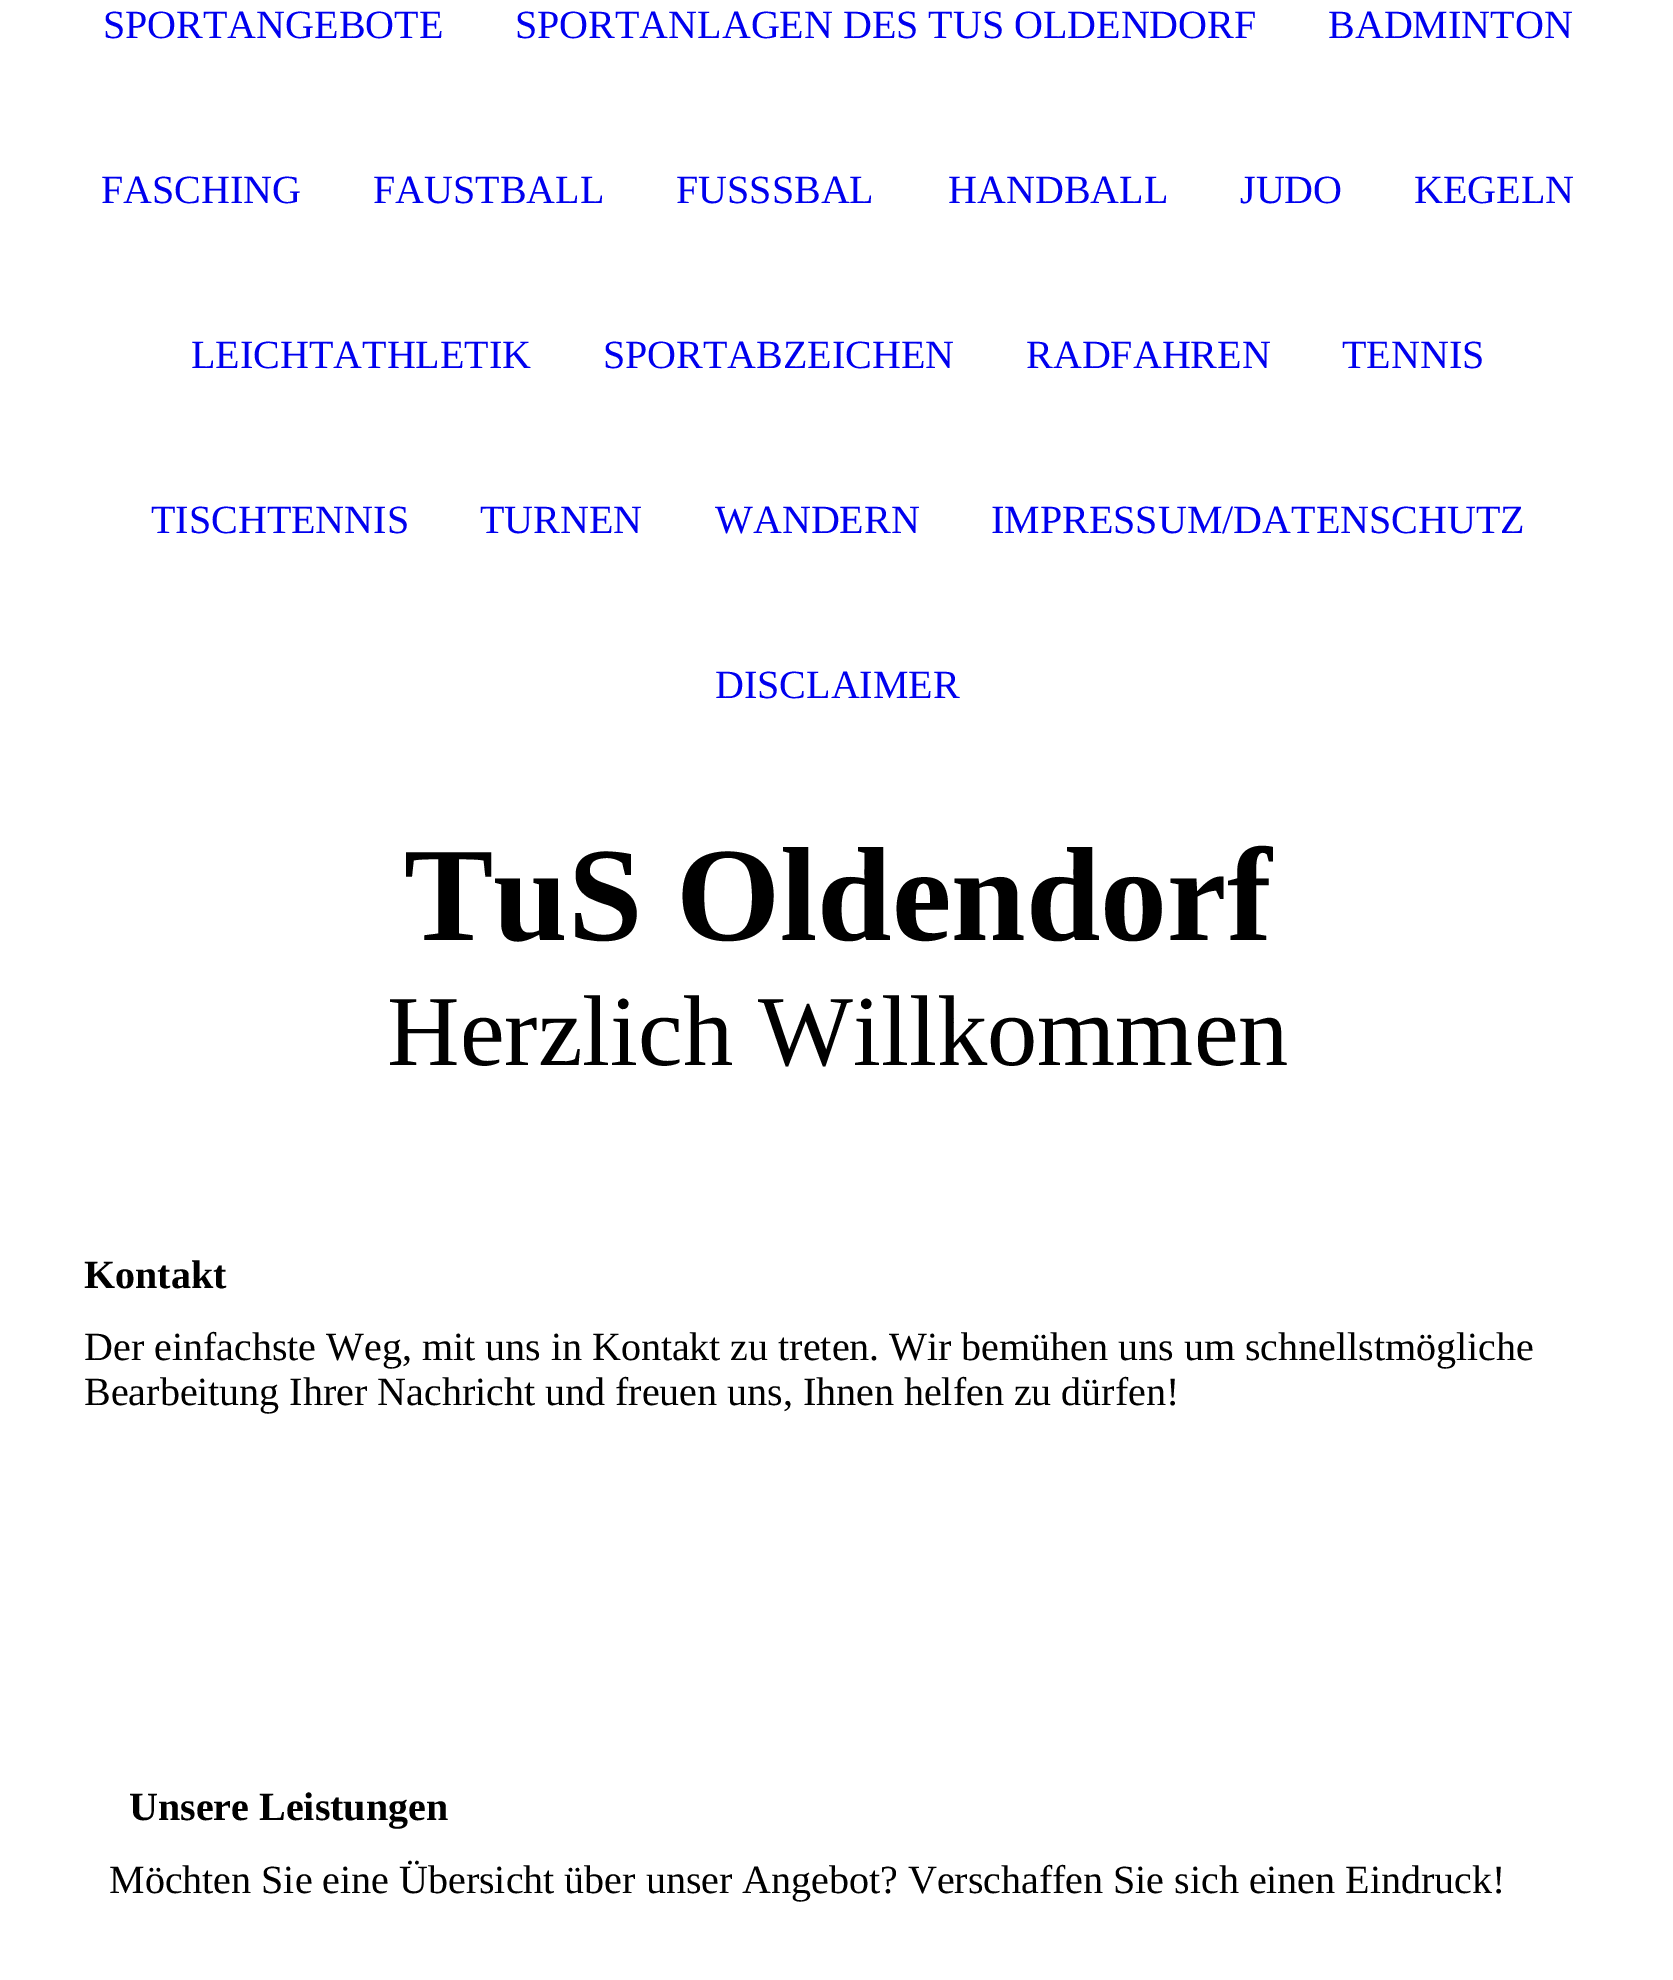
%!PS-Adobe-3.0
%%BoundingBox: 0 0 1673 1980
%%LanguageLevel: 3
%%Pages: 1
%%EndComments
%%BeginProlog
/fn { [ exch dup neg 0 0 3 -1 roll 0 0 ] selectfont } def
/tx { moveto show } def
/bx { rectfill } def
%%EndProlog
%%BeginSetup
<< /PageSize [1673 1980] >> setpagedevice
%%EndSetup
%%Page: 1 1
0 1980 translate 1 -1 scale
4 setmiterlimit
1 setgray
0 0 1673 1980 bx
/LiberationSerif-Regular 40 fn
0 0 0.933 setrgbcolor
(SPORTANGEBOTE) 103 38 tx
(SPORTANLAGEN DES TUS OLDENDORF) 515 38 tx
(BADMINTON) 1328 38 tx
(FASCHING) 101 203 tx
(FAUSTBALL) 373 203 tx
(FUSSSBAL) 676 203 tx
(HANDBALL) 948 203 tx
(JUDO) 1240 203 tx
(KEGELN) 1414 203 tx
(LEICHTATHLETIK) 191 368 tx
(SPORTABZEICHEN) 603 368 tx
(RADFAHREN) 1026 368 tx
(TENNIS) 1342 368 tx
(TISCHTENNIS) 151 533 tx
(TURNEN) 480 533 tx
(WANDERN) 715 533 tx
(IMPRESSUM/DATENSCHUTZ) 991 533 tx
(DISCLAIMER) 715 698 tx
/LiberationSerif-Bold 134 fn
0 setgray
(TuS Oldendorf) 404 940 tx
/LiberationSerif-Regular 100.5 fn
(Herzlich Willkommen) 387 1065 tx
/LiberationSerif-Bold 40 fn
(Kontakt) 84 1288 tx
/LiberationSerif-Regular 40 fn
(Der einfachste Weg, mit uns in Kontakt zu treten. Wir bemühen uns um schnellstmögliche) 84 1360 tx
(Bearbeitung Ihrer Nachricht und freuen uns, Ihnen helfen zu dürfen!) 84 1405 tx
/LiberationSerif-Bold 40 fn
(Unsere Leistungen) 129 1820 tx
/LiberationSerif-Regular 40 fn
(Möchten Sie eine Übersicht über unser Angebot? Verschaffen Sie sich einen Eindruck!) 109 1893 tx
showpage
%%EOF
